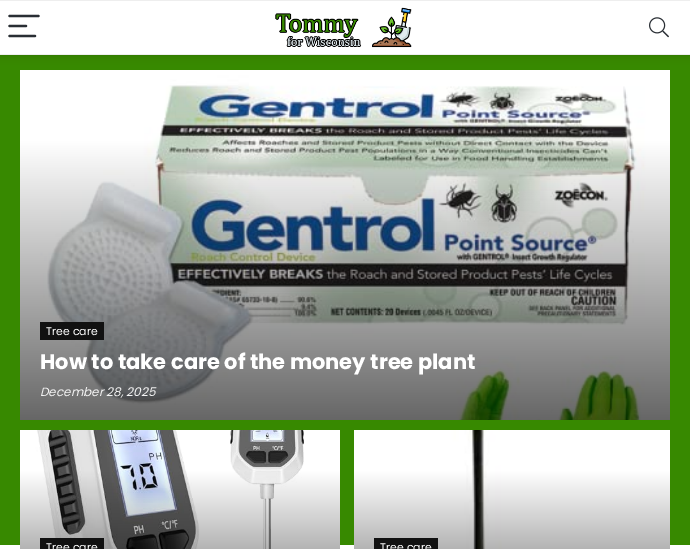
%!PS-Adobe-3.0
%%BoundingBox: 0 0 690 549
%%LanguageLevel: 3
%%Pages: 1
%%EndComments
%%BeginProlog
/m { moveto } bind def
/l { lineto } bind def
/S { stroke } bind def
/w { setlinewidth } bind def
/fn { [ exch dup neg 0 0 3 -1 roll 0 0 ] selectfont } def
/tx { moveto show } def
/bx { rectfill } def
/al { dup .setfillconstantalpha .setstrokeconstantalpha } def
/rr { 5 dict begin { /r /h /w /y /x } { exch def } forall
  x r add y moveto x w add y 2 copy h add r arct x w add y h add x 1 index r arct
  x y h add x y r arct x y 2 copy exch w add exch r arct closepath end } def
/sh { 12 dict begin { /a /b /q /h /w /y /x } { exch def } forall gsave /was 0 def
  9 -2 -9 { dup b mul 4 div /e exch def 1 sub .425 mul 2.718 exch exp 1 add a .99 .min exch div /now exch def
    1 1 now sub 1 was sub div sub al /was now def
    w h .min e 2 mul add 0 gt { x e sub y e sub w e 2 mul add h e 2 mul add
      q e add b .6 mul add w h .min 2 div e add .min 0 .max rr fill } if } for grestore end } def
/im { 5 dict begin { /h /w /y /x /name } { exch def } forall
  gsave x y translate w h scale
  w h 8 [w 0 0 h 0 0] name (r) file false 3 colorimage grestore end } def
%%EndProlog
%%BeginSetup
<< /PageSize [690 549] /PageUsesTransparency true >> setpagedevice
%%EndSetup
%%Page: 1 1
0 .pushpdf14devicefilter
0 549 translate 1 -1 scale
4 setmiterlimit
1 setgray
0 0 690 549 bx
0.208 0.522 0 setrgbcolor
-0.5 -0.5 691 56 rectstroke
0.216 0.537 0 setrgbcolor
0 56 690 489 bx
0 setgray
0 1 690 55 0 4 0.1 sh
0.933 setgray
0 0 690 1 bx
0 54 690 1 bx
1 setgray
0 1 690 53 bx
0.161 0.18 0.204 setrgbcolor
2.2 w
1 setlinecap
9.5 16 m 38.5 16 l 9.5 26 m 26 26 l 9.5 36 m 35 36 l S
(image0.raw) 275 7 137 41 im
(image1.raw) 649 17 20 21 im
(image2.raw) 20 70 650 350 im
0.067 setgray
40 322 64 18 bx
/Poppins-Regular 11 fn
1 setgray
(Tree care) 46 335 tx
/Poppins-Bold 21 fn
(How to take care of the money tree plant) 40 369 tx
/Poppins-Italic 12 fn
0.957 setgray
(December 28, 2025) 40 396 tx
(image3.raw) 20 430 320 119 im
0.067 setgray
40 538 64 11 bx
/Poppins-Regular 11 fn
1 setgray
(Tree care) 46 551 tx
(image4.raw) 354 430 316 119 im
0.067 setgray
374 538 64 11 bx
1 setgray
(Tree care) 380 551 tx
.poppdf14devicefilter showpage
%%EOF
